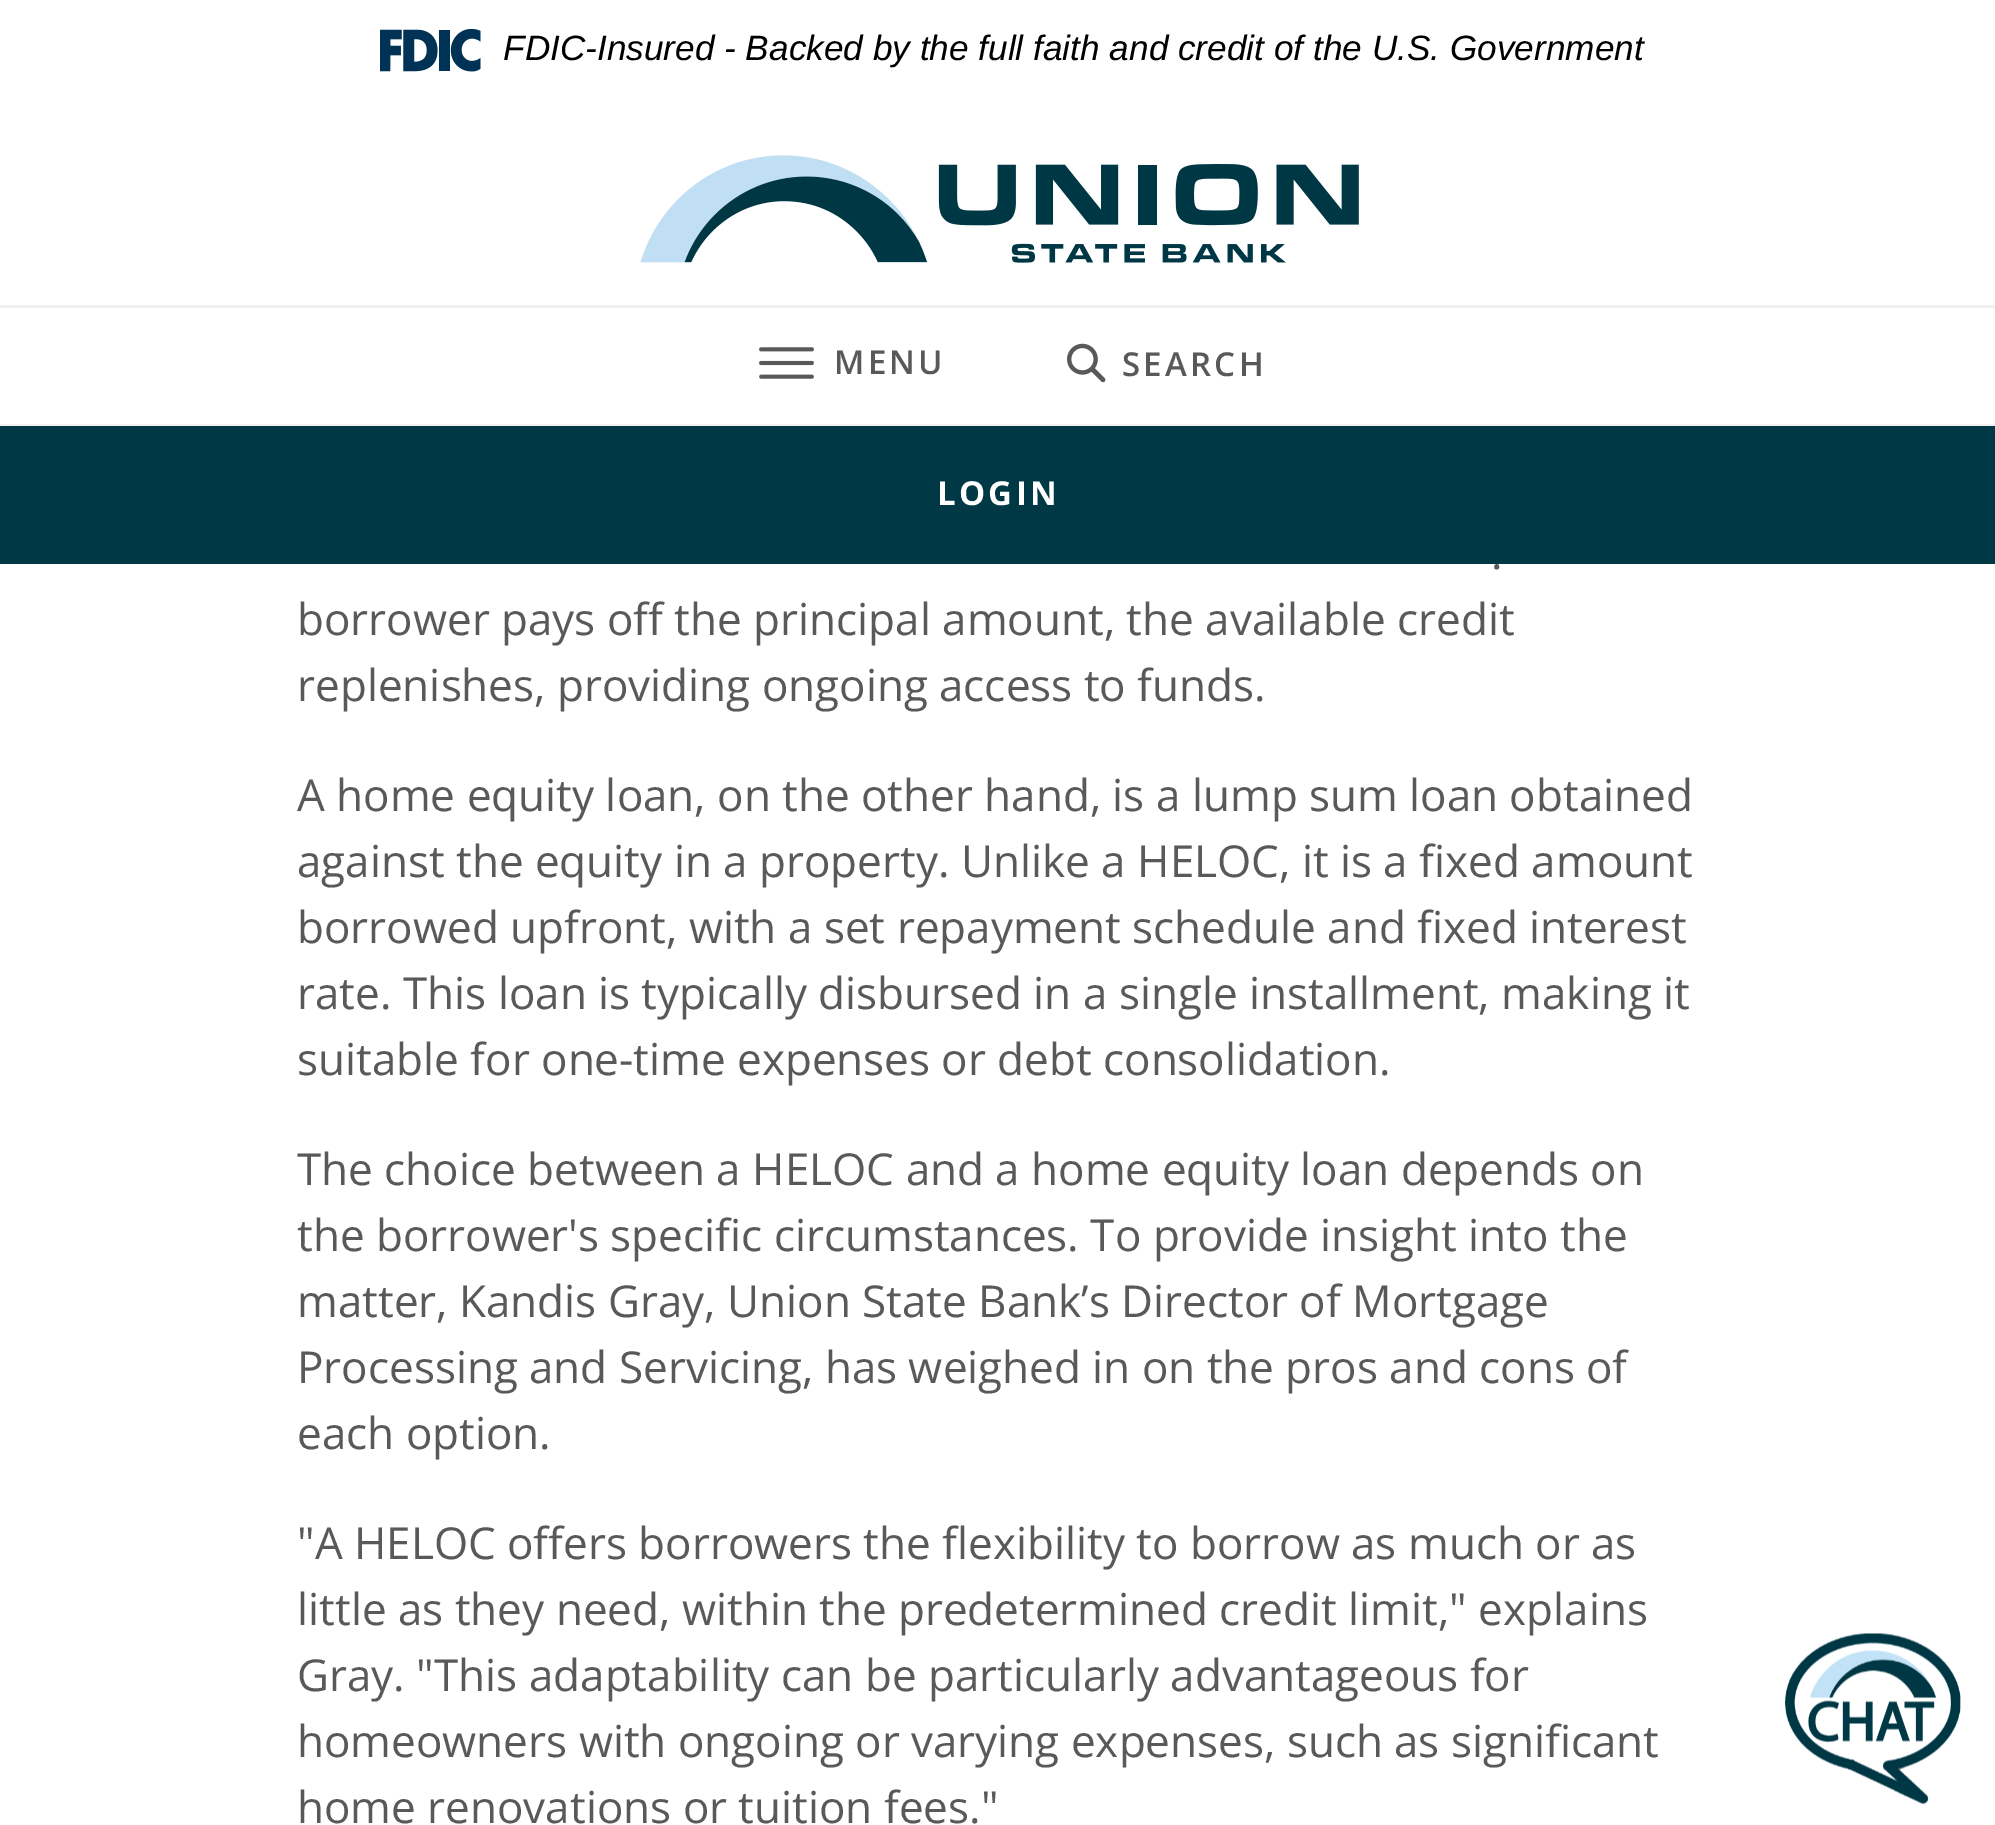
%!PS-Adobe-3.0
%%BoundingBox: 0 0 1995 1825
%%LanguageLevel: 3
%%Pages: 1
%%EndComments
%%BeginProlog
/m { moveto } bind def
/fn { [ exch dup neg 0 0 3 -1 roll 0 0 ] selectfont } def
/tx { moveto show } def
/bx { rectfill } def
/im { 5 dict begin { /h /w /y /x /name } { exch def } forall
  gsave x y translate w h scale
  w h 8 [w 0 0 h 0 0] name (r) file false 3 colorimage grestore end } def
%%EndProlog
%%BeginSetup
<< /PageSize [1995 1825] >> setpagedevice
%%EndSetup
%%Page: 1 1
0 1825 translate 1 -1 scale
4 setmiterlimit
1 setgray
0 0 1995 1825 bx
(image0.raw) 380 28 101 44 im
/LiberationSans-Italic 35.2 fn
0 setgray
(FDIC-Insured - Backed by the full faith and credit of the U.S. Government) 503 60 tx
(image1.raw) 640 155 719 108 im
0.941 setgray
0 305 1995 3 bx
0 424 1995 2 bx
(image2.raw) 759 347 55 32 im
/OpenSans-SemiBold 33 fn
0.349 setgray
834 374 m 3.25 0 (MENU) ashow
(image3.raw) 1067 343 39 40 im
1122 376 m 3.25 0 (SEARCH) ashow
0 0.22 0.275 setrgbcolor
0 426 1995 138 bx
/OpenSans-Bold 33 fn
1 setgray
937 505 m 3.25 0 (LOGIN) ashow
/OpenSans-Regular 44 fn
0.349 setgray
(.) 1491 569 tx
(borrower pays off the principal amount, the available credit) 297 635 tx
(replenishes, providing ongoing access to funds.) 297 701 tx
(A home equity loan, on the other hand, is a lump sum loan obtained) 297 811 tx
(against the equity in a property. Unlike a HELOC, it is a fixed amount) 297 877 tx
(borrowed upfront, with a set repayment schedule and fixed interest) 297 943 tx
(rate. This loan is typically disbursed in a single installment, making it) 297 1009 tx
(suitable for one-time expenses or debt consolidation.) 297 1075 tx
(The choice between a HELOC and a home equity loan depends on) 297 1185 tx
(the borrower's specific circumstances. To provide insight into the) 297 1251 tx
(matter, Kandis Gray, Union State Bank’s Director of Mortgage) 297 1317 tx
(Processing and Servicing, has weighed in on the pros and cons of) 297 1383 tx
(each option.) 297 1449 tx
("A HELOC offers borrowers the flexibility to borrow as much or as) 297 1559 tx
(little as they need, within the predetermined credit limit," explains) 297 1625 tx
(Gray. "This adaptability can be particularly advantageous for) 297 1691 tx
(homeowners with ongoing or varying expenses, such as significant) 297 1757 tx
(home renovations or tuition fees.") 297 1823 tx
(image4.raw) 1785 1633 176 172 im
showpage
%%EOF
